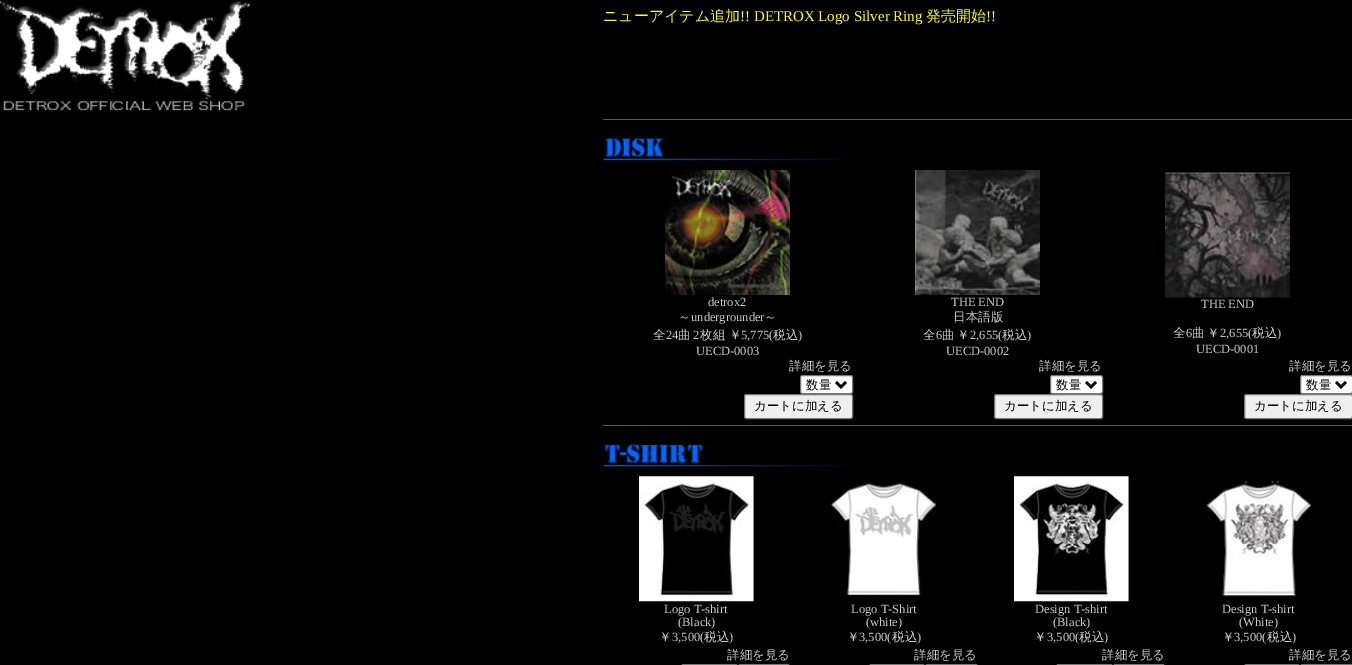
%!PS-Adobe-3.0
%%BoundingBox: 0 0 1352 665
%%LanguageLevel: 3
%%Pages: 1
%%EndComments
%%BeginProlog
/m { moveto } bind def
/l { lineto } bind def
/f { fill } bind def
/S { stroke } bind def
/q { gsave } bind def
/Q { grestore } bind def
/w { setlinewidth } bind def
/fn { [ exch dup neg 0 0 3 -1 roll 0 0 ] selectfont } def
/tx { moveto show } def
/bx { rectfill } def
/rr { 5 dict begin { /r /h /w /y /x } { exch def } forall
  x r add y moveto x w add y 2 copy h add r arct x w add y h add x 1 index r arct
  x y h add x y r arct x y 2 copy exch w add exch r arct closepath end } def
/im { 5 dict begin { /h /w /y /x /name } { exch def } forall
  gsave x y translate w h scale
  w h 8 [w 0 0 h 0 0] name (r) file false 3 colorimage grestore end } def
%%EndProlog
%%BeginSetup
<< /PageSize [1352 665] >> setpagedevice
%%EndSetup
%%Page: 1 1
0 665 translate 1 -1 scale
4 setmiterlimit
0 setgray
0 0 1352 665 bx
(image0.raw) 0 1 250 110 im
/WenQuanYiZenHei-Medium 15 fn
1 1 0 setrgbcolor
(ニューアイテム追加) 603 21 tx
/LiberationSerif-Regular 15 fn
(!! DETROX Logo Silver Ring) 740 21 tx
/WenQuanYiZenHei-Medium 15 fn
(発売開始) 926 21 tx
/LiberationSerif-Regular 15 fn
(!!) 986 21 tx
0 0.4 1 setrgbcolor
603 119 749 1 bx
(image1.raw) 602 136 250 30 im
(image2.raw) 665 170 125 125 im
/LiberationSerif-Regular 12.5 fn
0.8 setgray
(detrox2) 708 306 tx
/WenQuanYiZenHei-Medium 12.5 fn
(～) 678 321 tx
/LiberationSerif-Regular 12.5 fn
(undergrounder) 691 321 tx
/WenQuanYiZenHei-Medium 12.5 fn
(～) 764 321 tx
(全) 653 339 tx
/LiberationSerif-Regular 12.5 fn
(24) 666 339 tx
/WenQuanYiZenHei-Medium 12.5 fn
(曲) 678 339 tx
/LiberationSerif-Regular 12.5 fn
(2) 693 339 tx
/WenQuanYiZenHei-Medium 12.5 fn
(枚組 ￥) 700 339 tx
/LiberationSerif-Regular 12.5 fn
(5,775\() 741 339 tx
/WenQuanYiZenHei-Medium 12.5 fn
(税込) 773 339 tx
/LiberationSerif-Regular 12.5 fn
(\)) 798 339 tx
(UECD-0003) 696 355 tx
(image3.raw) 915 170 125 125 im
(THE END) 951 306 tx
/WenQuanYiZenHei-Medium 12.5 fn
(日本語版) 953 321 tx
(全) 923 339 tx
/LiberationSerif-Regular 12.5 fn
(6) 936 339 tx
/WenQuanYiZenHei-Medium 12.5 fn
942 339 m -1 0 32 (曲 ￥) widthshow
/LiberationSerif-Regular 12.5 fn
(2,655\() 970 339 tx
/WenQuanYiZenHei-Medium 12.5 fn
(税込) 1002 339 tx
/LiberationSerif-Regular 12.5 fn
(\)) 1027 339 tx
(UECD-0002) 946 355 tx
(image4.raw) 1165 172 125 126 im
(THE END) 1201 308 tx
/WenQuanYiZenHei-Medium 12.5 fn
(全) 1173 337 tx
/LiberationSerif-Regular 12.5 fn
(6) 1186 337 tx
/WenQuanYiZenHei-Medium 12.5 fn
1192 337 m -1 0 32 (曲 ￥) widthshow
/LiberationSerif-Regular 12.5 fn
(2,655\() 1220 337 tx
/WenQuanYiZenHei-Medium 12.5 fn
(税込) 1252 337 tx
/LiberationSerif-Regular 12.5 fn
(\)) 1277 337 tx
(UECD-0001) 1196 353 tx
/WenQuanYiZenHei-Medium 12.5 fn
(詳細を見る) 789 370 tx
(詳細を見る) 1039 370 tx
(詳細を見る) 1289 370 tx
1 setgray
800.5 375.5 52 18 2 rr q f Q
0.463 setgray
S
0 setgray
2.5 w
836 382 m 841 387 l 846 382 l S
(数量) 806 389 tx
0.937 setgray
744.5 394.5 108 24 2 rr q f Q
0.463 setgray
1 w
S
0 setgray
(カートに加える) 754 410 tx
1 setgray
1050.5 375.5 52 18 2 rr q f Q
0.463 setgray
S
0 setgray
2.5 w
1086 382 m 1091 387 l 1096 382 l S
(数量) 1056 389 tx
0.937 setgray
994.5 394.5 108 24 2 rr q f Q
0.463 setgray
1 w
S
0 setgray
(カートに加える) 1004 410 tx
1 setgray
1300.5 375.5 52 18 2 rr q f Q
0.463 setgray
S
0 setgray
2.5 w
1336 382 m 1341 387 l 1346 382 l S
(数量) 1306 389 tx
0.937 setgray
1244.5 394.5 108 24 2 rr q f Q
0.463 setgray
1 w
S
0 setgray
(カートに加える) 1254 410 tx
0 0.4 1 setrgbcolor
603 425 749 1 bx
(image5.raw) 602 442 250 31 im
(image6.raw) 639 476 115 126 im
/LiberationSerif-Regular 12.5 fn
0.8 setgray
(Logo T-shirt) 664 613 tx
(\(Black\)) 678 626 tx
/WenQuanYiZenHei-Medium 12.5 fn
(￥) 659 641 tx
/LiberationSerif-Regular 12.5 fn
(3,500\() 672 641 tx
/WenQuanYiZenHei-Medium 12.5 fn
(税込) 704 641 tx
/LiberationSerif-Regular 12.5 fn
(\)) 729 641 tx
(image7.raw) 831 483 105 113 im
(Logo T-Shirt) 851 613 tx
(\(white\)) 866 626 tx
/WenQuanYiZenHei-Medium 12.5 fn
(￥) 847 641 tx
/LiberationSerif-Regular 12.5 fn
(3,500\() 859 641 tx
/WenQuanYiZenHei-Medium 12.5 fn
(税込) 892 641 tx
/LiberationSerif-Regular 12.5 fn
(\)) 917 641 tx
(image8.raw) 1014 476 115 126 im
(Design T-shirt) 1035 613 tx
(\(Black\)) 1053 626 tx
/WenQuanYiZenHei-Medium 12.5 fn
(￥) 1034 641 tx
/LiberationSerif-Regular 12.5 fn
(3,500\() 1047 641 tx
/WenQuanYiZenHei-Medium 12.5 fn
(税込) 1079 641 tx
/LiberationSerif-Regular 12.5 fn
(\)) 1104 641 tx
(image9.raw) 1206 479 105 118 im
(Design T-shirt) 1222 613 tx
(\(White\)) 1239 626 tx
/WenQuanYiZenHei-Medium 12.5 fn
(￥) 1222 641 tx
/LiberationSerif-Regular 12.5 fn
(3,500\() 1234 641 tx
/WenQuanYiZenHei-Medium 12.5 fn
(税込) 1267 641 tx
/LiberationSerif-Regular 12.5 fn
(\)) 1292 641 tx
/WenQuanYiZenHei-Medium 12.5 fn
(詳細を見る) 727 659 tx
(詳細を見る) 914 659 tx
(詳細を見る) 1102 659 tx
(詳細を見る) 1289 659 tx
0.463 setgray
681.5 664.5 56 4 2 rr S
738.5 664.5 51 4 2 rr S
869.5 664.5 55 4 2 rr S
925.5 664.5 52 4 2 rr S
1056.5 664.5 56 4 2 rr S
1113.5 664.5 51 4 2 rr S
1244.5 664.5 55 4 2 rr S
1300.5 664.5 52 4 2 rr S
showpage
%%EOF
